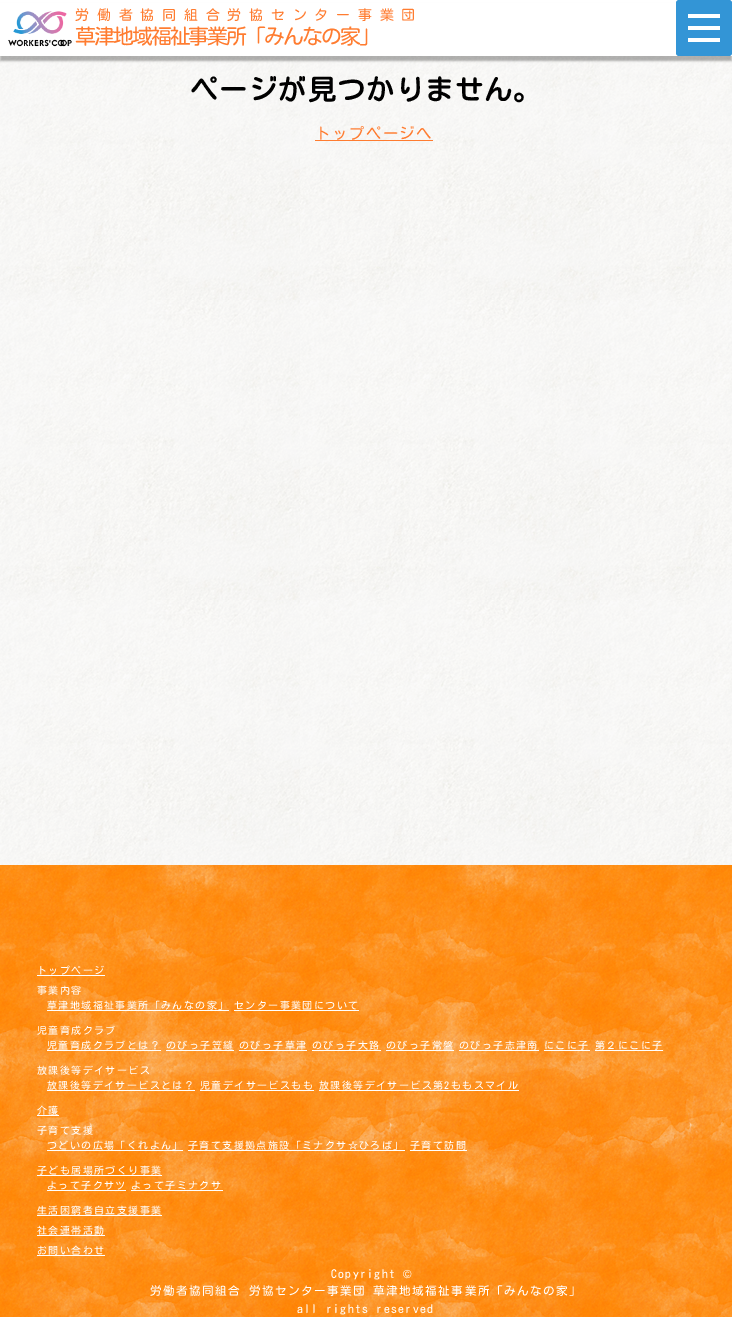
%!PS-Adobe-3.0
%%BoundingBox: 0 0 732 1317
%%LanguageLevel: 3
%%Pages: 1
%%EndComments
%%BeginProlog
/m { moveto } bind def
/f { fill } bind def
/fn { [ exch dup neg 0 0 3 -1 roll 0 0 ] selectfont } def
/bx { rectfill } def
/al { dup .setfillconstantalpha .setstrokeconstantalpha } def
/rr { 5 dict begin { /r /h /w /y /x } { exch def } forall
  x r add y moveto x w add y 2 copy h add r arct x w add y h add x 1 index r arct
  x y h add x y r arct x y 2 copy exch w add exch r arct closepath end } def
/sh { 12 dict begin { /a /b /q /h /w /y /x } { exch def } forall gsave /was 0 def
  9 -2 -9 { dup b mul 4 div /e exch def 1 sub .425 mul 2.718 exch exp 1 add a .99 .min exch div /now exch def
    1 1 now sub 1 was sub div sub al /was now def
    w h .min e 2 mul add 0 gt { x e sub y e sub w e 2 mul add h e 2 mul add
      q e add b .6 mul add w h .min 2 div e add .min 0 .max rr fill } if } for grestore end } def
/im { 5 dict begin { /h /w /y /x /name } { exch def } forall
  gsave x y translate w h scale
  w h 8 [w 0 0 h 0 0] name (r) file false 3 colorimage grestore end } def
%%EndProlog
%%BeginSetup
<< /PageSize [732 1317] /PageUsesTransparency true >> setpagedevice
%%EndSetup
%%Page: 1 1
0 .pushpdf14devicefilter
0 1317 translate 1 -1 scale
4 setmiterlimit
1 setgray
0 0 732 1317 bx
(image0.raw) 0 56 732 809 im
0 setgray
0 5 732 56 0 1 0.3 sh
1 setgray
0 3 732 53 bx
(image1.raw) 8 11 64 36 im
/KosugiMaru-Regular 14 fn
1 0.486 0.188 setrgbcolor
75 20 m 7.75 0 (労働者協同組合労協センター事業団) ashow
/KosugiMaru-Regular 21 fn
75 44 m -2.1 0 (草津地域福祉事業所「みんなの家」) ashow
0.2 0.584 0.839 setrgbcolor
676 0 56 56 3 rr f
1 setgray
688 26 32 4 bx
688 14 32 4 bx
688 38 32 4 bx
/KosugiMaru-Bold 28 fn
0 setgray
190 100 m 1.4 0 (ページが見つかりません。) ashow
/KosugiMaru-Regular 15.5 fn
1 0.486 0.188 setrgbcolor
315 139 m 1.4 0 (トップページへ) ashow
315 140 118 1 bx
(image2.raw) 0 865 732 452 im
/KosugiMaru-Regular 10 fn
1 setgray
37 974 m 1.4 0 (トップページ) ashow
37 975 68 1 bx
37 994 m 1.4 0 (事業内容) ashow
47 1009 m 1.4 0 (草津地域福祉事業所「みんなの家」) ashow
47 1010 182 1 bx
234 1009 m 1.4 0 (センター事業団について) ashow
234 1010 125 1 bx
37 1034 m 1.4 0 (児童育成クラブ) ashow
47 1049 m 1.4 0 (児童育成クラブとは？) ashow
47 1050 114 1 bx
166 1049 m 1.4 0 (のびっ子笠縫) ashow
166 1050 68 1 bx
239 1049 m 1.4 0 (のびっ子草津) ashow
239 1050 68 1 bx
312 1049 m 1.4 0 (のびっ子大路) ashow
312 1050 69 1 bx
386 1049 m 1.4 0 (のびっ子常盤) ashow
386 1050 68 1 bx
459 1049 m 1.4 0 (のびっ子志津南) ashow
459 1050 80 1 bx
544 1049 m 1.4 0 (にこに子) ashow
544 1050 46 1 bx
595 1049 m 1.4 0 (第２にこに子) ashow
595 1050 68 1 bx
37 1074 m 1.4 0 (放課後等デイサービス) ashow
47 1089 m 1.4 0 (放課後等デイサービスとは？) ashow
47 1090 148 1 bx
200 1089 m 1.4 0 (児童デイサービスもも) ashow
200 1090 114 1 bx
319 1089 m 1.4 0 (放課後等デイサービス第2ももスマイル) ashow
319 1090 200 1 bx
37 1114 m 1.4 0 (介護) ashow
37 1115 22 1 bx
37 1134 m 1.4 0 (子育て支援) ashow
47 1149 m 1.4 0 (つどいの広場「くれよん」) ashow
47 1150 136 1 bx
188 1149 m 1.4 0 (子育て支援拠点施設「ミナクサ☆ひろば」) ashow
188 1150 217 1 bx
410 1149 m 1.4 0 (子育て訪問) ashow
410 1150 57 1 bx
37 1174 m 1.4 0 (子ども居場所づくり事業) ashow
37 1175 125 1 bx
47 1189 m 1.4 0 (よって子クサツ) ashow
47 1190 79 1 bx
131 1189 m 1.4 0 (よって子ミナクサ) ashow
131 1190 92 1 bx
37 1214 m 1.4 0 (生活困窮者自立支援事業) ashow
37 1215 125 1 bx
37 1234 m 1.4 0 (社会連帯活動) ashow
37 1235 68 1 bx
37 1254 m 1.4 0 (お問い合わせ) ashow
37 1255 68 1 bx
/KosugiMaru-Regular 11.65 fn
331 1278 m 1.4 0 (Copyright) ashow
/LiberationSans-Regular 11.65 fn
403 1278 m 1.4 0 (©) ashow
/KosugiMaru-Regular 11.65 fn
150 1295 m 1.4 0 (労働者協同組合 労協センター事業団 草津地域福祉事業所「みんなの家」) ashow
297 1313 m 1.4 0 (all rights reserved) ashow
.poppdf14devicefilter showpage
%%EOF
